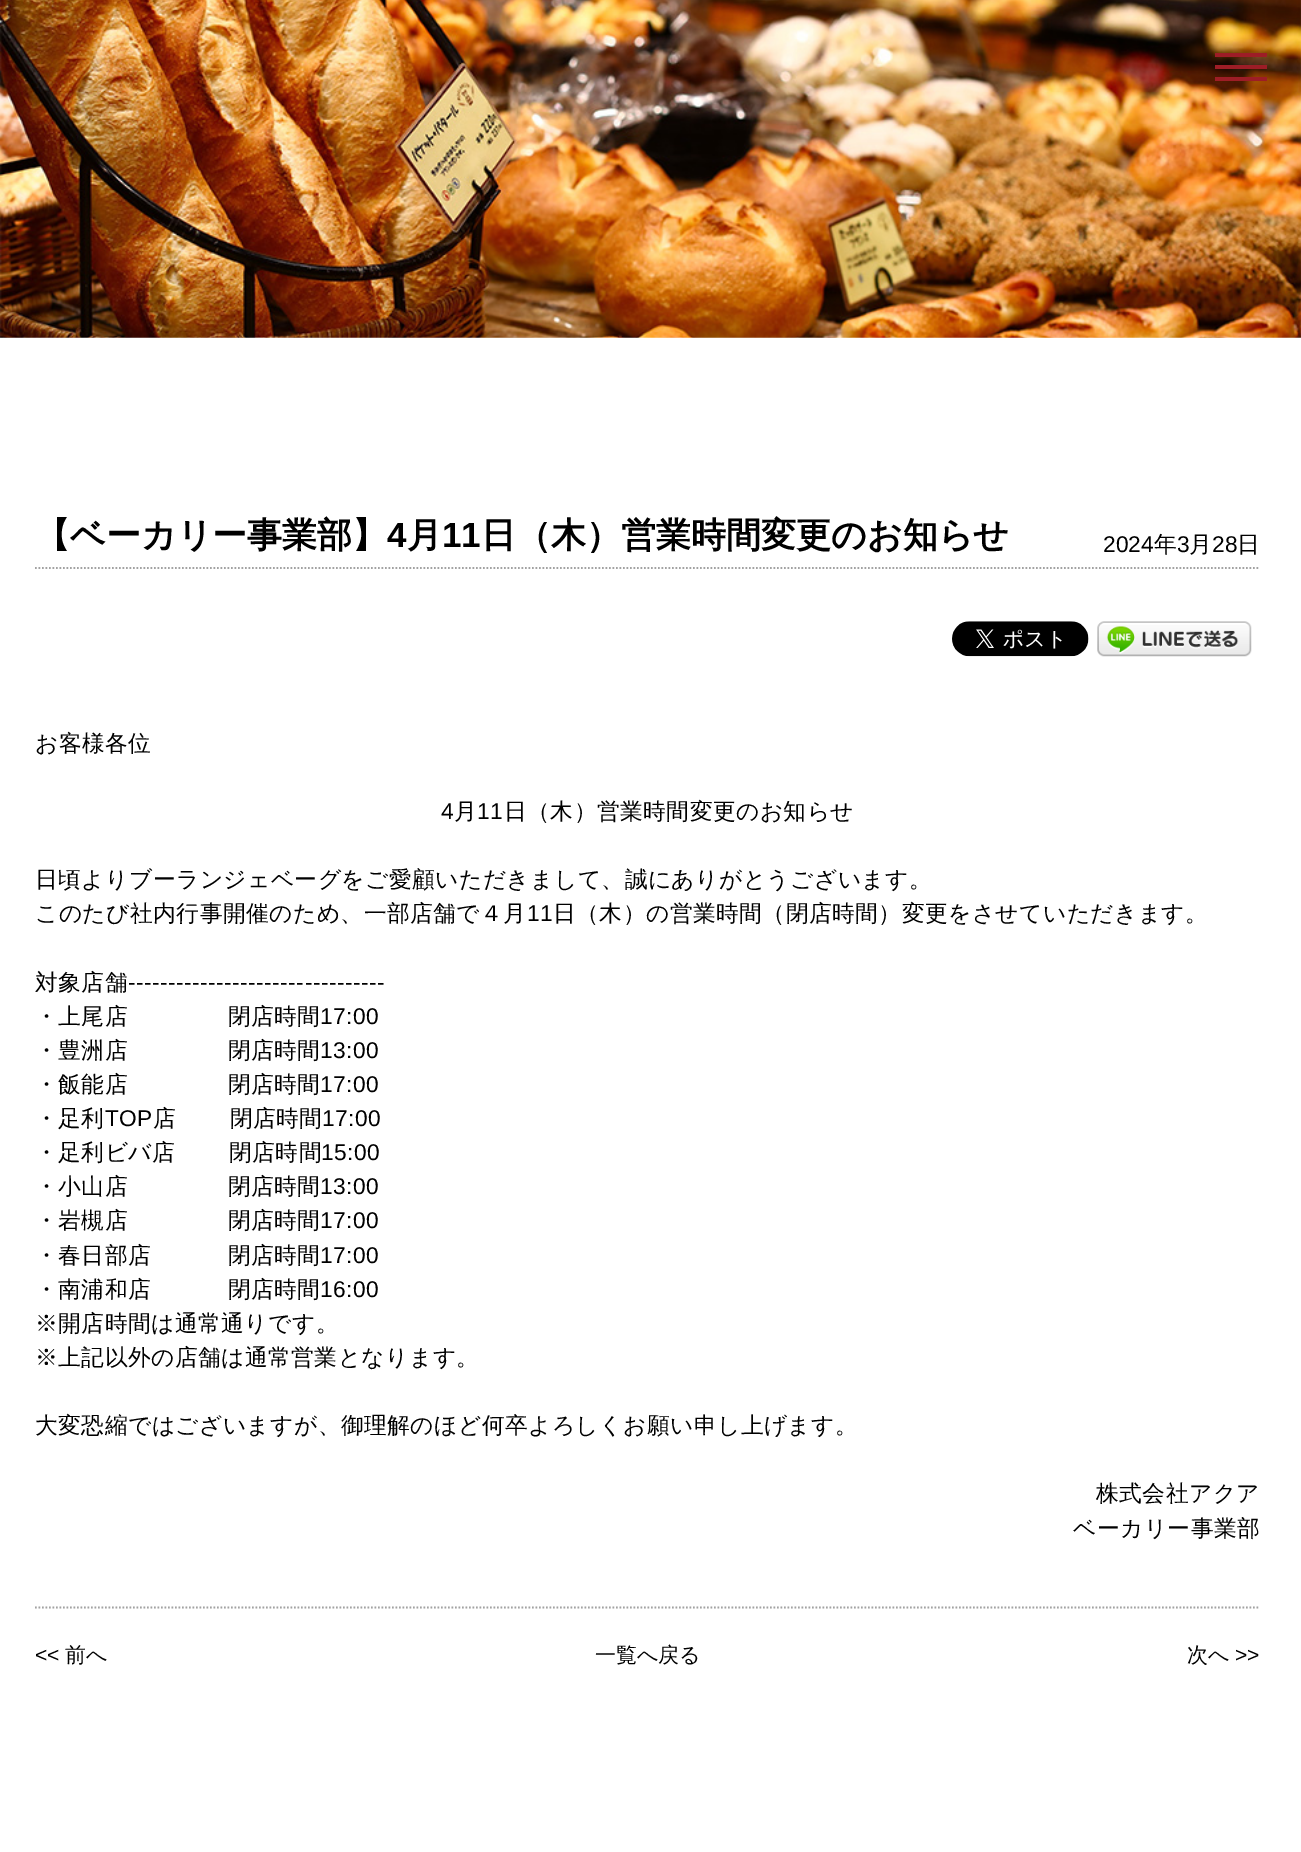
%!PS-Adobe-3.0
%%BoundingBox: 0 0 1301 1852
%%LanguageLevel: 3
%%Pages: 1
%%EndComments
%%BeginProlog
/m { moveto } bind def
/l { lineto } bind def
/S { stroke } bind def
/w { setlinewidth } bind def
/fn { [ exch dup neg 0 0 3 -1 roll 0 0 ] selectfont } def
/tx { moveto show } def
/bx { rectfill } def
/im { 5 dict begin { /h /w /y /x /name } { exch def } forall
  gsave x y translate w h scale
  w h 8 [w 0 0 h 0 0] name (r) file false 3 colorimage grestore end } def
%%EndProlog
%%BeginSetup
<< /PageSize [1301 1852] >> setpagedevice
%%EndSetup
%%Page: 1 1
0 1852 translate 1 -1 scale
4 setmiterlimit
1 setgray
0 0 1301 1852 bx
(image0.raw) 0 0 1301 338 im
0.616 0.114 0.149 setrgbcolor
1215 53 52 4 bx
1215 65 52 4 bx
1215 77 52 4 bx
0.635 setgray
1.8 w
[1.75 1.75] 0 setdash
35 568 m 1260 568 l S
/WenQuanYiZenHei-Bold 35 fn
0 setgray
(【ベーカリー事業部】) 35 547 tx
/LiberationSans-Bold 35 fn
(4) 387 547 tx
/WenQuanYiZenHei-Bold 35 fn
(月) 407 547 tx
/LiberationSans-Bold 35 fn
(11) 442 547 tx
/WenQuanYiZenHei-Bold 35 fn
(日（木）営業時間変更のお知らせ) 481 547 tx
/LiberationSans-Regular 22.75 fn
(2024) 1103 552 tx
/WenQuanYiZenHei-Medium 22.75 fn
(年) 1154 552 tx
/LiberationSans-Regular 22.75 fn
(3) 1177 552 tx
/WenQuanYiZenHei-Medium 22.75 fn
(月) 1189 552 tx
/LiberationSans-Regular 22.75 fn
(28) 1212 552 tx
/WenQuanYiZenHei-Medium 22.75 fn
(日) 1237 552 tx
0.635 setgray
35 1607.5 m 1260 1607.5 l S
(image1.raw) 952 621 137 36 im
(image2.raw) 1097 621 155 36 im
0 setgray
35 751 m 0.45 0 (お客様各位) ashow
/LiberationSans-Regular 22.75 fn
441 819 m 0.45 0 (4) ashow
/WenQuanYiZenHei-Medium 22.75 fn
454 819 m 0.45 0 (月) ashow
/LiberationSans-Regular 22.75 fn
477 819 m 0.45 0 (11) ashow
/WenQuanYiZenHei-Medium 22.75 fn
504 819 m 0.45 0 (日（木）営業時間変更のお知らせ) ashow
35 887 m 0.45 0 (日頃よりブーランジェベーグをご愛顧いただきまして、誠にありがとうございます。) ashow
35 921 m 0.45 0 (このたび社内行事開催のため、一部店舗で４月) ashow
/LiberationSans-Regular 22.75 fn
527 921 m 0.45 0 (11) ashow
/WenQuanYiZenHei-Medium 22.75 fn
553 921 m 0.45 0 (日（木）の営業時間（閉店時間）変更をさせていただきます。) ashow
35 990 m 0.45 0 (対象店舗) ashow
/LiberationSans-Regular 22.75 fn
128 990 m 0.45 0 (--------------------------------) ashow
/WenQuanYiZenHei-Medium 22.75 fn
35 1024 m 0.45 0 (・上尾店　　　　 閉店時間) ashow
/LiberationSans-Regular 22.75 fn
320 1024 m 0.45 0 (17:00) ashow
/WenQuanYiZenHei-Medium 22.75 fn
35 1058 m 0.45 0 (・豊洲店　　　　 閉店時間) ashow
/LiberationSans-Regular 22.75 fn
320 1058 m 0.45 0 (13:00) ashow
/WenQuanYiZenHei-Medium 22.75 fn
35 1092 m 0.45 0 (・飯能店　　　　 閉店時間) ashow
/LiberationSans-Regular 22.75 fn
320 1092 m 0.45 0 (17:00) ashow
/WenQuanYiZenHei-Medium 22.75 fn
35 1126 m 0.45 0 (・足利) ashow
/LiberationSans-Regular 22.75 fn
105 1126 m 0.45 0 (TOP) ashow
/WenQuanYiZenHei-Medium 22.75 fn
153 1126 m 0.45 0 (店　　 閉店時間) ashow
/LiberationSans-Regular 22.75 fn
322 1126 m 0.45 0 (17:00) ashow
/WenQuanYiZenHei-Medium 22.75 fn
35 1160 m 0.45 0 (・足利ビバ店　 　閉店時間) ashow
/LiberationSans-Regular 22.75 fn
321 1160 m 0.45 0 (15:00) ashow
/WenQuanYiZenHei-Medium 22.75 fn
35 1194 m 0.45 0 (・小山店　　　　 閉店時間) ashow
/LiberationSans-Regular 22.75 fn
320 1194 m 0.45 0 (13:00) ashow
/WenQuanYiZenHei-Medium 22.75 fn
35 1228 m 0.45 0 (・岩槻店　　　　 閉店時間) ashow
/LiberationSans-Regular 22.75 fn
320 1228 m 0.45 0 (17:00) ashow
/WenQuanYiZenHei-Medium 22.75 fn
35 1263 m 0.45 0 (・春日部店　　　 閉店時間) ashow
/LiberationSans-Regular 22.75 fn
320 1263 m 0.45 0 (17:00) ashow
/WenQuanYiZenHei-Medium 22.75 fn
35 1297 m 0.45 0 (・南浦和店　　　 閉店時間) ashow
/LiberationSans-Regular 22.75 fn
320 1297 m 0.45 0 (16:00) ashow
/WenQuanYiZenHei-Medium 22.75 fn
35 1331 m 0.45 0 (※開店時間は通常通りです。) ashow
35 1365 m 0.45 0 (※上記以外の店舗は通常営業となります。) ashow
35 1433 m 0.45 0 (大変恐縮ではございますが、御理解のほど何卒よろしくお願い申し上げます。) ashow
1096 1501 m 0.45 0 (株式会社アクア) ashow
1073 1536 m 0.45 0 (ベーカリー事業部) ashow
/LiberationSans-Regular 21 fn
(<<) 35 1662 tx
/WenQuanYiZenHei-Medium 21 fn
(前へ) 65 1662 tx
(一覧へ戻る) 595 1662 tx
(次へ) 1187 1662 tx
/LiberationSans-Regular 21 fn
(>>) 1235 1662 tx
showpage
%%EOF
